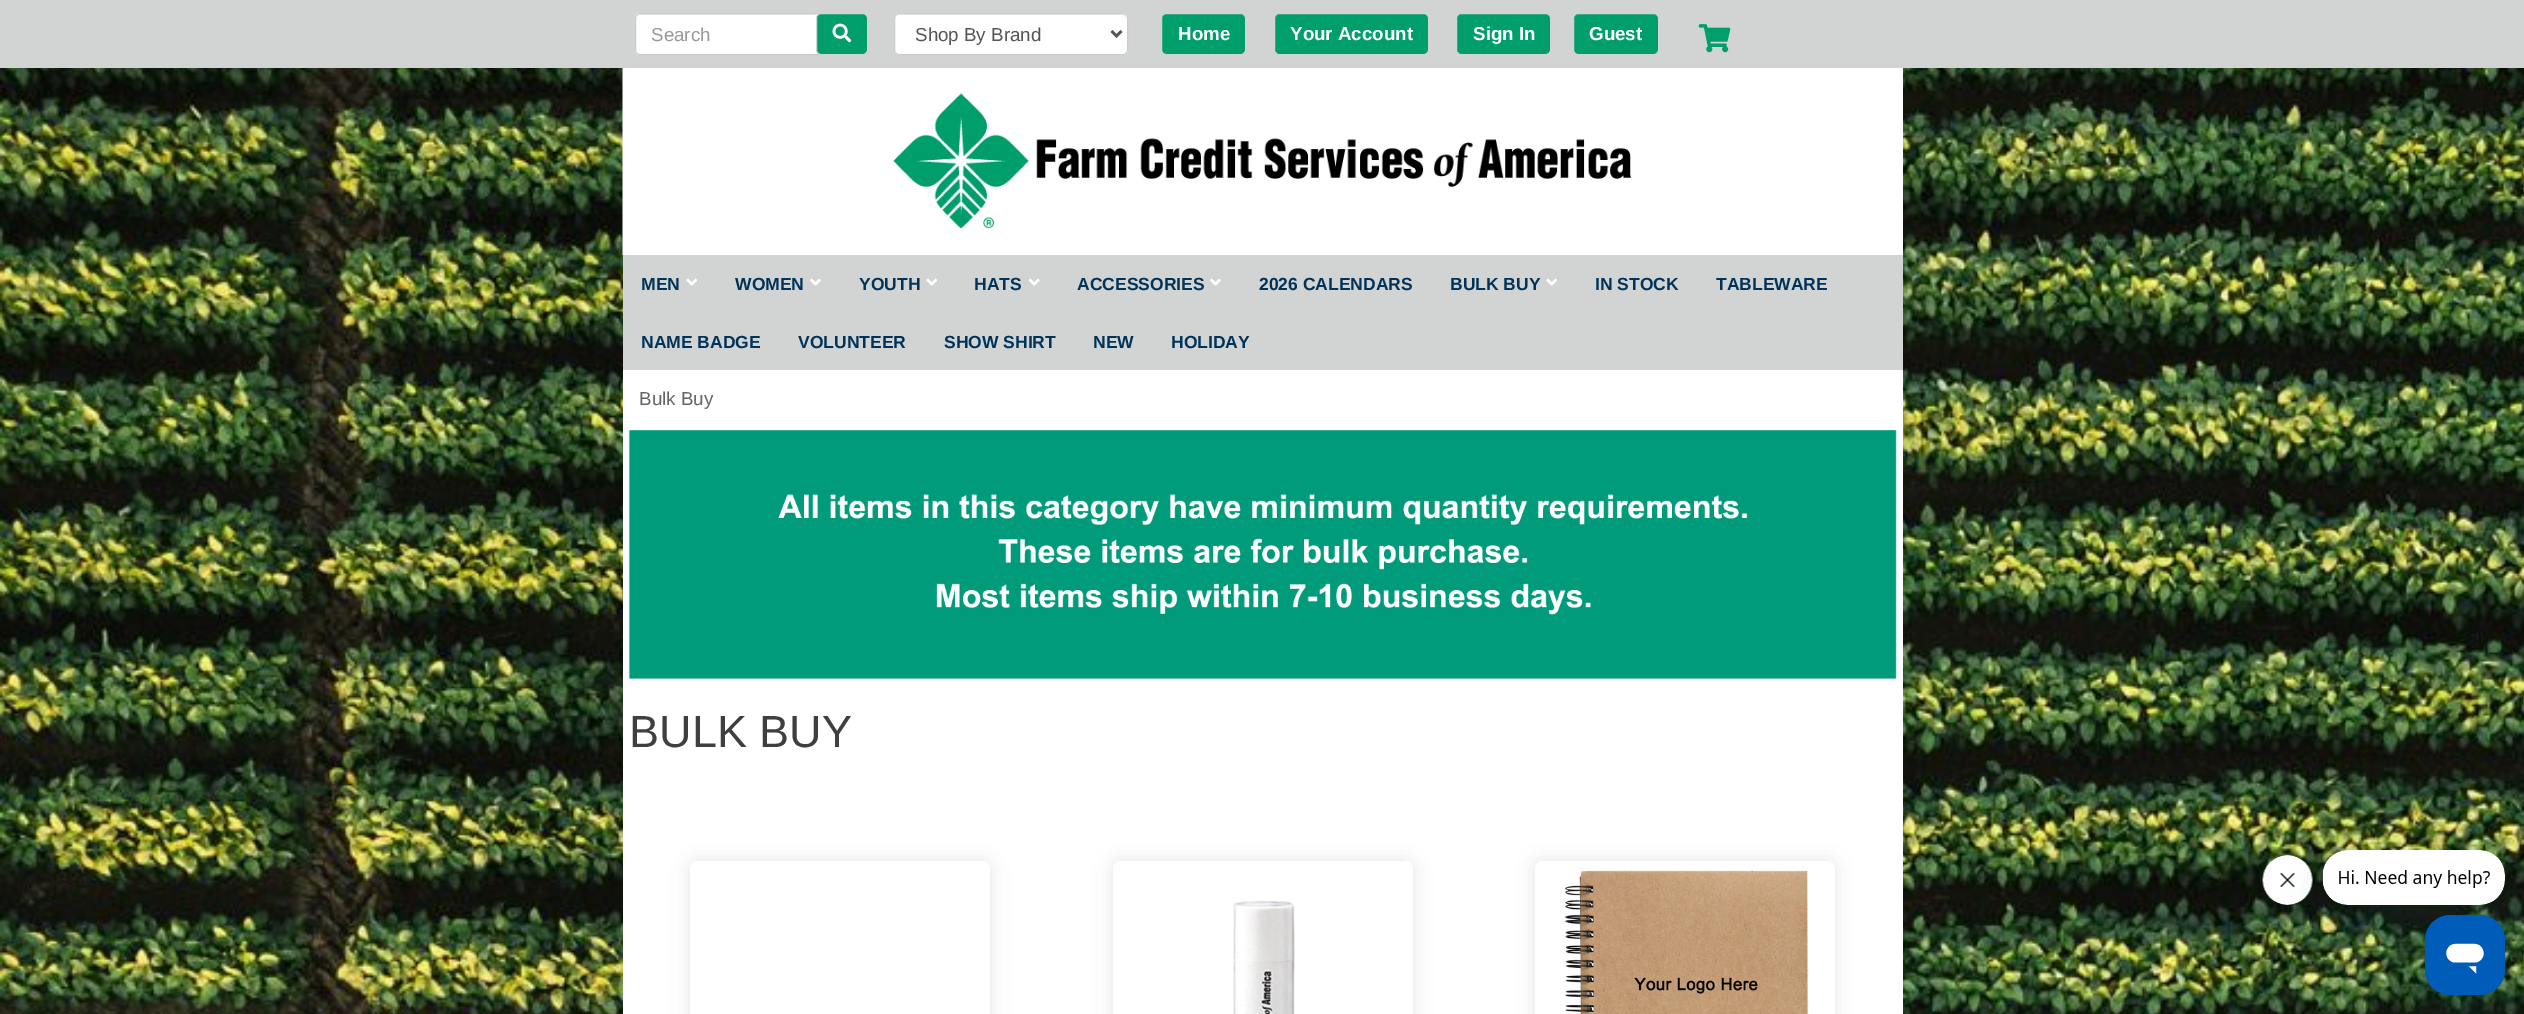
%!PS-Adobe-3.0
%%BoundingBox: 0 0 2524 1014
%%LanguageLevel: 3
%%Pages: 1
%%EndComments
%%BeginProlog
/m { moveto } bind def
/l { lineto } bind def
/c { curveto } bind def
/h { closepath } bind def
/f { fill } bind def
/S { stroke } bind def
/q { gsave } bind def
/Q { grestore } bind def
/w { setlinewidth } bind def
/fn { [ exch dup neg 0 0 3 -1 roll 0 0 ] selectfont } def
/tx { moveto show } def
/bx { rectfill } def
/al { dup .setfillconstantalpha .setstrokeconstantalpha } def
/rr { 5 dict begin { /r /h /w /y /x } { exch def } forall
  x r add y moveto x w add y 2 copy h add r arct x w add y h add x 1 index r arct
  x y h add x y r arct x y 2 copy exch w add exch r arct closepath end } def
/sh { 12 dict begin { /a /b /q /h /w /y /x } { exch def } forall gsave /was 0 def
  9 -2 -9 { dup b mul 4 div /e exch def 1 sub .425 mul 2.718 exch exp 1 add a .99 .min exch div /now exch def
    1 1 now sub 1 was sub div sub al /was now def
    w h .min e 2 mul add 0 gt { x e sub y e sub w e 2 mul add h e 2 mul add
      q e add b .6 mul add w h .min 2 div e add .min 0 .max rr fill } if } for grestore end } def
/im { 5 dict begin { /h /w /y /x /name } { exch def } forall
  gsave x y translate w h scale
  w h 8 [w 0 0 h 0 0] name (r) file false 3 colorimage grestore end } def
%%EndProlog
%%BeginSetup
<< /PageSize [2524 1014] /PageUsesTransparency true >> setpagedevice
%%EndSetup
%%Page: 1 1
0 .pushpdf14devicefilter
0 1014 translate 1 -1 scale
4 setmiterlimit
1 setgray
0 0 2524 1014 bx
(image0.raw) 0 68 2524 946 im
0.82 0.831 0.827 setrgbcolor
0 0 2524 68 bx
1 setgray
640 13 m 818 13 l 818 55 l 640 55 l 637 55 635 53 635 50 c 635 18 l 635 15 637 13 640 13 c h f
0.925 setgray
640 15 m 816 15 l 816 14 l 639 14 l 637 15 636 17 636 19 c 636 17 638 15 640 15 c h f
0.8 setgray
640 13.5 m 817.5 13.5 l 817.5 54.5 l 640 54.5 l 637.5 54.5 635.5 52.5 635.5 50 c 635.5 18 l 635.5 15.5 637.5 13.5 640 13.5 c h S
/LiberationSans-Regular 18.75 fn
0.6 setgray
(Search) 651 41 tx
0 0.62 0.42 setrgbcolor
816.5 13.5 51 41 4.5 rr q f Q
0.82 0.831 0.827 setrgbcolor
S
(image1.raw) 832 23 20 20 im
1 setgray
894 13 234 42 5 rr f
0.925 setgray
899 15 m 1122 15 l 1125 15 1126 17 1126 19 c 1126 16 1125 14 1122 14 c 899 14 l 896 14 895 16 895 19 c 895 17 897 15 899 15 c h f
0.8 setgray
894.5 13.5 233 41 4.5 rr S
0.333 setgray
2.5 w
1111.5 31 m 1116.5 36 l 1121.5 31 l S
(Shop By Brand) 915 41 tx
0 0.62 0.42 setrgbcolor
1161.5 13.5 84 41 4.5 rr q f Q
0.82 0.831 0.827 setrgbcolor
1 w
S
/LiberationSans-Bold 18.75 fn
1 setgray
(Home) 1178 40 tx
0 0.62 0.42 setrgbcolor
1274.5 13.5 154 41 4.5 rr q f Q
0.82 0.831 0.827 setrgbcolor
S
1 setgray
(Your Account) 1290 40 tx
0 0.62 0.42 setrgbcolor
1456.5 13.5 94 41 4.5 rr q f Q
0.82 0.831 0.827 setrgbcolor
S
1 setgray
(Sign In) 1473 40 tx
0 0.62 0.42 setrgbcolor
1573.5 13.5 85 41 4.5 rr q f Q
0.82 0.831 0.827 setrgbcolor
S
1 setgray
(Guest) 1589 40 tx
(image2.raw) 1698 24 33 29 im
1902 68 1 187 bx
(image3.raw) 622 68 1281 187 im
0.82 0.831 0.827 setrgbcolor
623 255 1280 115 bx
/LiberationSans-Bold 17.5 fn
0 0.2 0.349 setrgbcolor
(MEN) 641 290 tx
(image4.raw) 686 278 11 8 im
(WOMEN) 735 290 tx
(image5.raw) 810 278 11 8 im
(YOUTH) 859 290 tx
(image4.raw) 926 278 11 8 im
(HATS) 974 290 tx
(image6.raw) 1028 278 12 8 im
(ACCESSORIES) 1077 290 tx
(image5.raw) 1210 278 11 8 im
(2026 CALENDARS) 1259 290 tx
(BULK BUY) 1450 290 tx
(image4.raw) 1546 278 11 8 im
(IN STOCK) 1595 290 tx
(TABLEWARE) 1716 290 tx
(NAME BADGE) 641 348 tx
(VOLUNTEER) 798 348 tx
(SHOW SHIRT) 944 348 tx
(NEW) 1093 348 tx
(HOLIDAY) 1171 348 tx
1 setgray
623 370 1280 644 bx
/LiberationSans-Regular 18.75 fn
0.4 setgray
(Bulk Buy) 639 405 tx
(image7.raw) 628 430 1269 249 im
/LiberationSans-Regular 45 fn
0.247 setgray
(BULK BUY) 629 747 tx
0 setgray
690 861 300 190 8 9.5 0.1 sh
1 setgray
690 861 300 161 8 rr f
0 setgray
1113 861 300 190 8 9.5 0.1 sh
1 setgray
1113 861 300 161 8 rr f
(image8.raw) 1233 900 62 114 im
0 setgray
1535 861 300 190 8 9.5 0.1 sh
1 setgray
1535 861 300 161 8 rr f
(image9.raw) 1562 867 247 147 im
(image11.raw) 2262 855 51 50 im
0.09 0.286 0.302 setrgbcolor
2323 875 182 55 25 19 0.15 sh
(image10.raw) 2322 850 183 55 im
2425 940 80 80 25 19 0.15 sh
(image12.raw) 2425 915 80 80 im
.poppdf14devicefilter showpage
%%EOF
